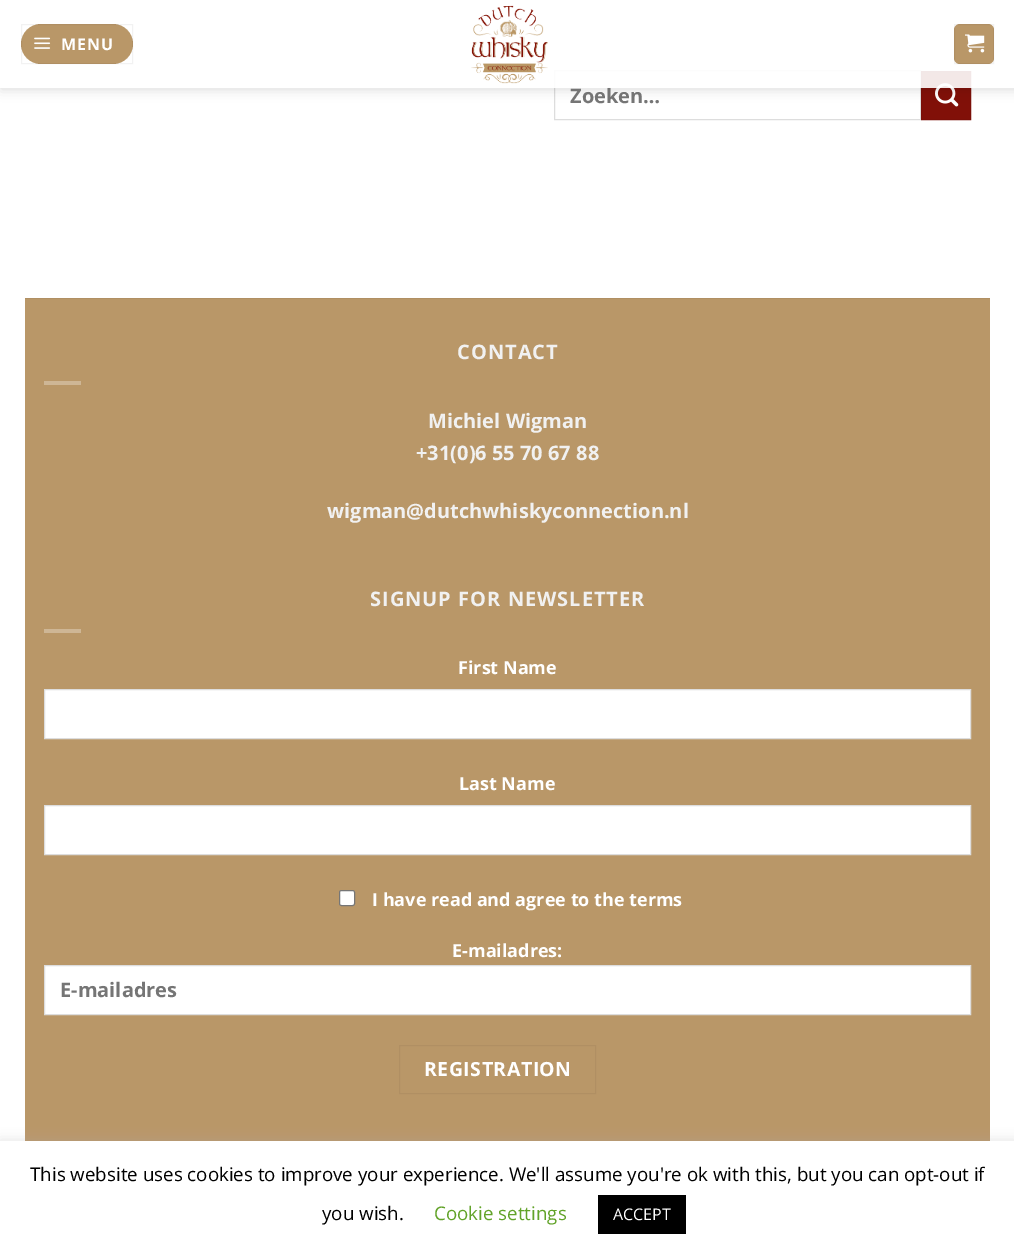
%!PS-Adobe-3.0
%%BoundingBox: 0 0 1014 1255
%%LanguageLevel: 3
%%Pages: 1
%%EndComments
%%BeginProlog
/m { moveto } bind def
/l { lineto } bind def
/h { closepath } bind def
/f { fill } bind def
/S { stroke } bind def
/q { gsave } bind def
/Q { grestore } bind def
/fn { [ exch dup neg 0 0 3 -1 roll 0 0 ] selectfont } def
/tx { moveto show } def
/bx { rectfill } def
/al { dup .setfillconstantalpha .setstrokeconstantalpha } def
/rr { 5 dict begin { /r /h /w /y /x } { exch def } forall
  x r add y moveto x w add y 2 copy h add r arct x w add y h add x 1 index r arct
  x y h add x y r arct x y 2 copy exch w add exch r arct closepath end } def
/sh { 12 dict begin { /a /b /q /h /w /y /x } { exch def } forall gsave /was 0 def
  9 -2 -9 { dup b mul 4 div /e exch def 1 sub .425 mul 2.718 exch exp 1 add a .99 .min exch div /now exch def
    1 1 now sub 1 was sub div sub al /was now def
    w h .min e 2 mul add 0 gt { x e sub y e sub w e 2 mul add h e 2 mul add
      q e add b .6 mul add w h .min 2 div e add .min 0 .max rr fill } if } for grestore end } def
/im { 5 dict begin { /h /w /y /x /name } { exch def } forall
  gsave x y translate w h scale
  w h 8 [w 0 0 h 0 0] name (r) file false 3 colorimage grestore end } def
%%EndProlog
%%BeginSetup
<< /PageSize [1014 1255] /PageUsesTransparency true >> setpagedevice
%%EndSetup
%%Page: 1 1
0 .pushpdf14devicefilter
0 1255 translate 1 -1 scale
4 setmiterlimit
1 setgray
0 0 1014 1255 bx
0.867 setgray
554.5 70.5 366 49 rectstroke
0.506 0.063 0.031 setrgbcolor
921.5 71.5 m 970.5 71.5 l 970.5 119.5 l 921.5 119.5 l h q f Q
0.482 0.059 0.031 setrgbcolor
S
(image3.raw) 935 83 24 24 im
q
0 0 m 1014 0 l 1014 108 l 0 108 l h 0 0 m 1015 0 l 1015 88 l 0 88 l h eoclip newpath
0 setgray
1 1 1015 88 0 6 0.15 sh
Q
0.725 0.592 0.408 setrgbcolor
21 24 112 40 20 rr f
0.05 al
0 setgray
21.5 24.5 111 39 rectstroke
1 al
(image0.raw) 34 37 17 12 im
/OpenSans-Bold 16 fn
1 setgray
61 50 m 1 0 (MENU) ashow
/OpenSans-Bold 20 fn
0.459 setgray
(Zoeken…) 570 103 tx
0.9 al
1 setgray
0 70 1014 18 bx
1 al
(image1.raw) 471 5 77 79 im
0.725 0.592 0.408 setrgbcolor
954 24 40 40 6 rr f
0.05 al
0 setgray
954.5 24.5 39 39 rectstroke
1 al
(image2.raw) 965 34 20 19 im
0.725 0.592 0.408 setrgbcolor
25 299 965 842 bx
0.69 0.561 0.388 setrgbcolor
25 298 965 1 bx
0.945 setgray
457 359 m 1 0 (CONTACT) ashow
0.808 0.714 0.584 setrgbcolor
44 381 37 4 bx
0.945 setgray
(Michiel Wigman) 428 428 tx
(+31\(0\)6 55 70 67 88) 416 460 tx
(wigman@dutchwhiskyconnection.nl) 327 518 tx
370 606 m 1 0 (SIGNUP FOR NEWSLETTER) ashow
0.808 0.714 0.584 setrgbcolor
44 629 37 4 bx
/OpenSans-Bold 18 fn
1 setgray
(First Name) 458 674 tx
44.5 689.5 m 970.5 689.5 l 970.5 738.5 l 44.5 738.5 l h q f Q
0.867 setgray
S
1 setgray
(Last Name) 459 790 tx
44.5 805.5 m 970.5 805.5 l 970.5 854.5 l 44.5 854.5 l h q f Q
0.867 setgray
S
1 setgray
339.5 890.5 15 15 2 rr q f Q
0.463 setgray
S
1 setgray
(I have read and agree to the terms) 372 906 tx
(E-mailadres:) 452 957 tx
44.5 965.5 m 970.5 965.5 l 970.5 1014.5 l 44.5 1014.5 l h q f Q
0.867 setgray
S
/OpenSans-Bold 20 fn
0.459 setgray
(E-mailadres) 60 997 tx
0.69 0.561 0.388 setrgbcolor
399.5 1045.5 196 48 rectstroke
/OpenSans-Bold 19.5 fn
1 setgray
424 1076 m 0.5 0 (REGISTRATION) ashow
0.675 0.671 0.671 setrgbcolor
0 1140 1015 114 0 6 0.3 sh
1 setgray
0 1141 1014 114 bx
/OpenSans-Regular 18.75 fn
0 setgray
(This website uses cookies to improve your experience. We'll assume you're ok with this, but you can opt-out if) 30 1181 tx
(you wish.) 322 1220 tx
0.384 0.639 0.161 setrgbcolor
(Cookie settings) 434 1220 tx
0 setgray
598 1195 88 39 bx
/OpenSans-Regular 16 fn
1 setgray
(ACCEPT) 613 1220 tx
.poppdf14devicefilter showpage
%%EOF
